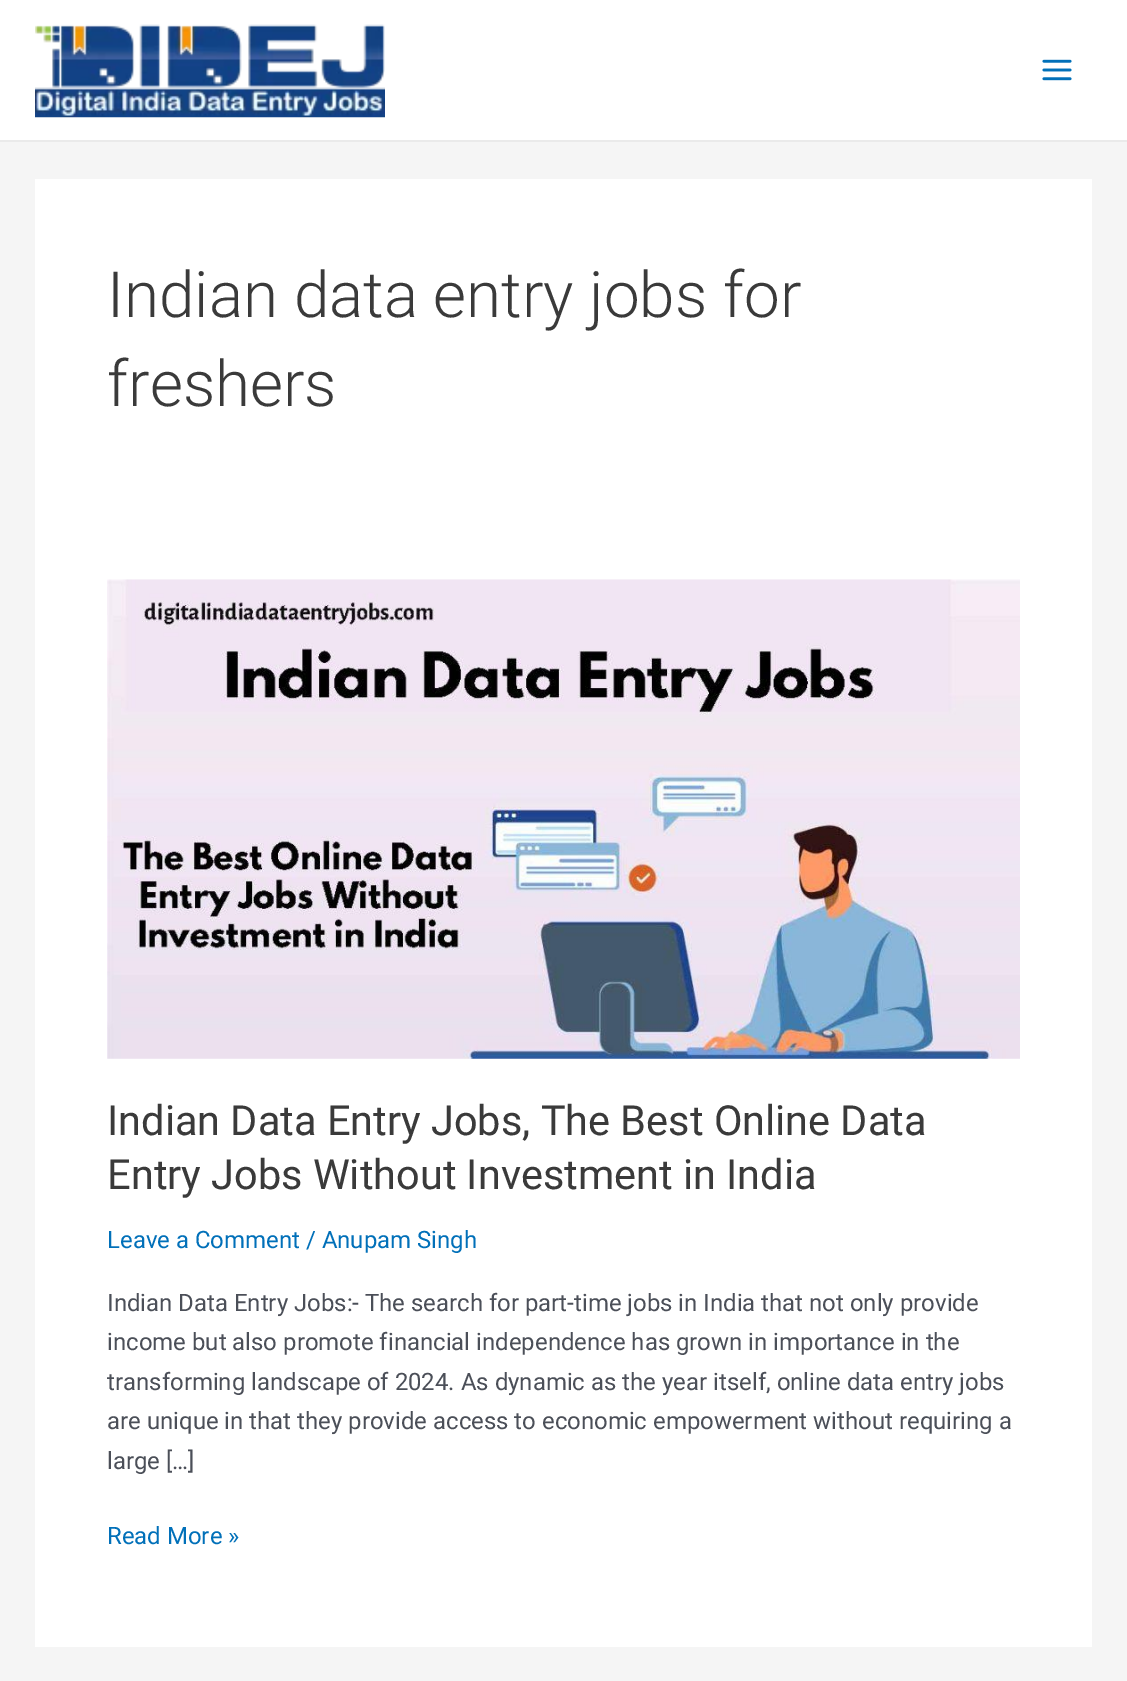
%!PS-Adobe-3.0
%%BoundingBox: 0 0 1127 1681
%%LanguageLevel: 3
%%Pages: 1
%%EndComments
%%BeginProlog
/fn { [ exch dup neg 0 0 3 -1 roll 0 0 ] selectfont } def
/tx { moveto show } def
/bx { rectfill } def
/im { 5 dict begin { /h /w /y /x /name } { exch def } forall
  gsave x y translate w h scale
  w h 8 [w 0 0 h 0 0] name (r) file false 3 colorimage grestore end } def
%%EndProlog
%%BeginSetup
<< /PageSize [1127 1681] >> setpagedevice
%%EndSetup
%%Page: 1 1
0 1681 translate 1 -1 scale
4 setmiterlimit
0.961 setgray
0 0 1127 1681 bx
1 setgray
0 0 1127 140 bx
0.918 setgray
0 140 1127 2 bx
(image0.raw) 35 24 350 94 im
(image1.raw) 1042 59 30 22 im
1 setgray
35 179 1057 1468 bx
/Roboto-Light 63.75 fn
0.227 setgray
(Indian data entry jobs for) 107 317 tx
(freshers) 107 406 tx
(image2.raw) 107 579 913 480 im
/Roboto-Regular 41.5 fn
(Indian Data Entry Jobs, The Best Online Data) 107 1135 tx
(Entry Jobs Without Investment in India) 107 1189 tx
/Roboto-Regular 23.95 fn
0.004 0.439 0.725 setrgbcolor
(Leave a Comment / Anupam Singh) 107 1248 tx
0.294 0.31 0.345 setrgbcolor
(Indian Data Entry Jobs:- The search for part-time jobs in India that not only provide) 107 1311 tx
(income but also promote financial independence has grown in importance in the) 107 1350 tx
(transforming landscape of 2024. As dynamic as the year itself, online data entry jobs) 107 1390 tx
(are unique in that they provide access to economic empowerment without requiring a) 107 1429 tx
(large […]) 107 1469 tx
0.004 0.439 0.725 setrgbcolor
(Read More ») 107 1544 tx
showpage
%%EOF
